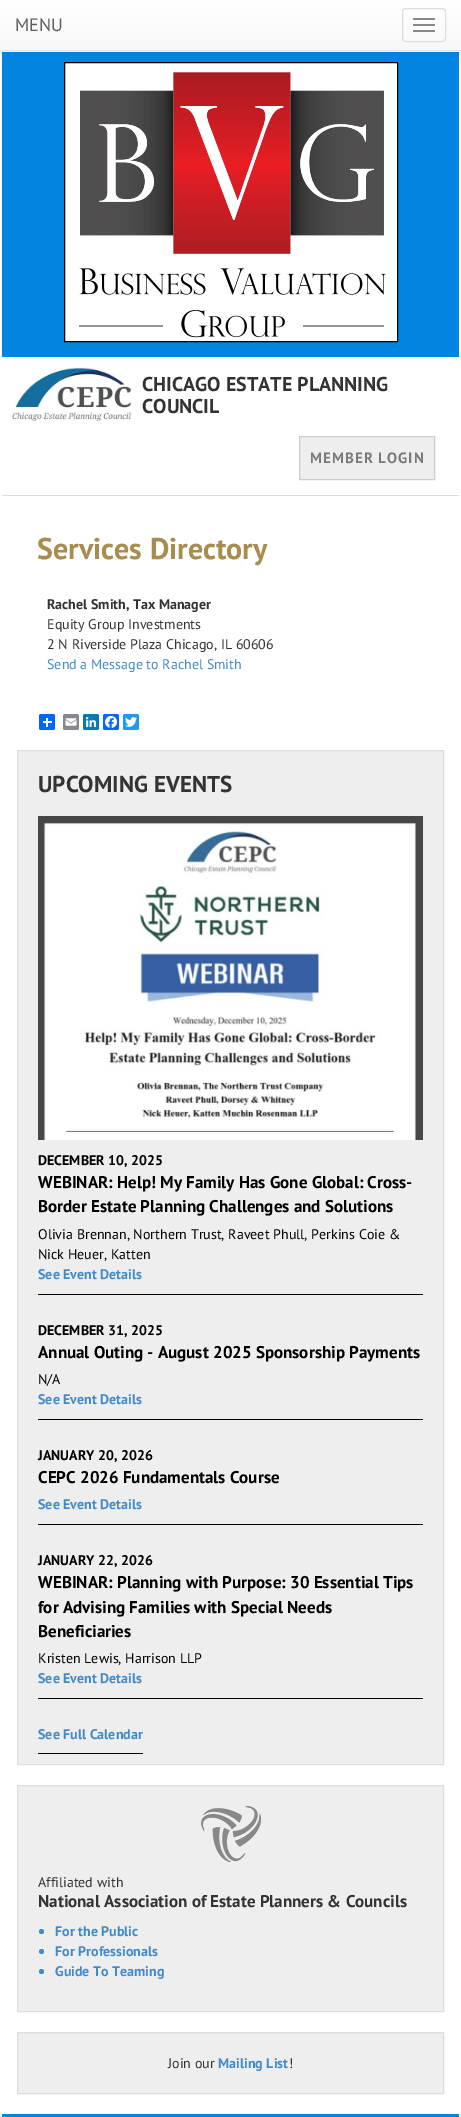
%!PS-Adobe-3.0
%%BoundingBox: 0 0 461 2117
%%LanguageLevel: 3
%%Pages: 1
%%EndComments
%%BeginProlog
/m { moveto } bind def
/l { lineto } bind def
/h { closepath } bind def
/f { fill } bind def
/S { stroke } bind def
/q { gsave } bind def
/Q { grestore } bind def
/fn { [ exch dup neg 0 0 3 -1 roll 0 0 ] selectfont } def
/tx { moveto show } def
/bx { rectfill } def
/al { dup .setfillconstantalpha .setstrokeconstantalpha } def
/ci { newpath 0 360 arc closepath } def
/rr { 5 dict begin { /r /h /w /y /x } { exch def } forall
  x r add y moveto x w add y 2 copy h add r arct x w add y h add x 1 index r arct
  x y h add x y r arct x y 2 copy exch w add exch r arct closepath end } def
/sh { 12 dict begin { /a /b /q /h /w /y /x } { exch def } forall gsave /was 0 def
  9 -2 -9 { dup b mul 4 div /e exch def 1 sub .425 mul 2.718 exch exp 1 add a .99 .min exch div /now exch def
    1 1 now sub 1 was sub div sub al /was now def
    w h .min e 2 mul add 0 gt { x e sub y e sub w e 2 mul add h e 2 mul add
      q e add b .6 mul add w h .min 2 div e add .min 0 .max rr fill } if } for grestore end } def
/im { 5 dict begin { /h /w /y /x /name } { exch def } forall
  gsave x y translate w h scale
  w h 8 [w 0 0 h 0 0] name (r) file false 3 colorimage grestore end } def
%%EndProlog
%%BeginSetup
<< /PageSize [461 2117] /PageUsesTransparency true >> setpagedevice
%%EndSetup
%%Page: 1 1
0 .pushpdf14devicefilter
0 2117 translate 1 -1 scale
4 setmiterlimit
1 setgray
0 0 461 2117 bx
0.004 0.522 0.882 setrgbcolor
2 52 457 305 bx
0 setgray
0 1 461 51 0 2.5 0.07 sh
q 0 0 m 461 0 l 461 50 l 0 50 l h clip newpath
<< /ShadingType 2 /ColorSpace /DeviceRGB /Coords [231 0 231 50] /Extend [true true] /Function << /FunctionType 2 /Domain [0 1] /C0 [1 1 1] /C1 [0.973 0.973 0.973] /N 1 >> >> shfill Q
0.906 setgray
0 50 461 1 bx
/PTSans-Regular 18 fn
0.369 setgray
(MENU) 15 31 tx
0.867 setgray
402.5 8.5 43 33 3.5 rr S
0.533 setgray
413 18 22 2 1 rr f
413 24 22 2 1 rr f
413 30 22 2 1 rr f
1 setgray
64.5 62.5 m 397.5 62.5 l 397.5 341.5 l 64.5 341.5 l h q f Q
0 setgray
S
(image0.raw) 79 72 307 266 im
0.867 setgray
2 495 457 1 bx
(image1.raw) 12 367 120 55 im
/PTSans-Bold 20 fn
0.2 setgray
(CHICAGO ESTATE PLANNING) 142 391 tx
(COUNCIL) 142 413 tx
0.933 setgray
299.5 436.5 m 434.5 436.5 l 434.5 479.5 l 299.5 479.5 l h q f Q
0.8 setgray
S
/PTSans-Bold 15 fn
0.486 0.475 0.482 setrgbcolor
310 463 m 1 0 (MEMBER LOGIN) ashow
/PTSans-Bold 30 fn
0.659 0.553 0.31 setrgbcolor
(Services Directory) 37 559 tx
/PTSans-Bold 14 fn
0.2 setgray
(Rachel Smith, Tax Manager) 47 609 tx
/PTSans-Regular 14 fn
(Equity Group Investments) 47 629 tx
(2 N Riverside Plaza Chicago, IL 60606) 47 649 tx
0.259 0.545 0.792 setrgbcolor
(Send a Message to Rachel Smith) 47 669 tx
0.004 0.4 1 setrgbcolor
39 714 16 16 2 rr f
1 setgray
46 718 2 9 bx
43 721 9 2 bx
0.533 0.537 0.565 setrgbcolor
63 714 16 16 2 rr f
(image2.raw) 65 718 12 8 im
0 0.482 0.71 setrgbcolor
83 714 16 16 2 rr f
(image3.raw) 86 717 11 11 im
0.031 0.4 1 setrgbcolor
103 714 16 16 2 rr f
(image4.raw) 105 716 12 12 im
0.114 0.608 0.941 setrgbcolor
123 714 16 16 2 rr f
(image5.raw) 125 717 12 10 im
0.933 setgray
17.5 750.5 m 443.5 750.5 l 443.5 1764.5 l 17.5 1764.5 l h q f Q
0.867 setgray
S
/PTSans-Bold 23 fn
0.2 setgray
(UPCOMING EVENTS) 38 792 tx
0 setgray
38 1294 385 1 bx
(image6.raw) 38 816 385 324 im
/PTSans-Bold 14 fn
(DECEMBER 10, 2025) 38 1165 tx
/PTSans-Bold 17 fn
(WEBINAR: Help! My Family Has Gone Global: Cross-) 38 1188 tx
(Border Estate Planning Challenges and Solutions) 38 1212 tx
/PTSans-Regular 14 fn
(Olivia Brennan, Northern Trust, Raveet Phull, Perkins Coie &) 38 1239 tx
(Nick Heuer, Katten) 38 1259 tx
/PTSans-Bold 14 fn
0.259 0.545 0.792 setrgbcolor
(See Event Details) 38 1279 tx
0 setgray
38 1419 385 1 bx
(DECEMBER 31, 2025) 38 1335 tx
/PTSans-Bold 17 fn
(Annual Outing - August 2025 Sponsorship Payments) 38 1358 tx
/PTSans-Regular 14 fn
(N/A) 38 1384 tx
/PTSans-Bold 14 fn
0.259 0.545 0.792 setrgbcolor
(See Event Details) 38 1404 tx
0 setgray
38 1524 385 1 bx
(JANUARY 20, 2026) 38 1460 tx
/PTSans-Bold 17 fn
(CEPC 2026 Fundamentals Course) 38 1483 tx
/PTSans-Bold 14 fn
0.259 0.545 0.792 setrgbcolor
(See Event Details) 38 1509 tx
0 setgray
38 1698 385 1 bx
(JANUARY 22, 2026) 38 1565 tx
/PTSans-Bold 17 fn
(WEBINAR: Planning with Purpose: 30 Essential Tips) 38 1588 tx
(for Advising Families with Special Needs) 38 1613 tx
(Beneficiaries) 38 1637 tx
/PTSans-Regular 14 fn
(Kristen Lewis, Harrison LLP) 38 1663 tx
/PTSans-Bold 14 fn
0.259 0.545 0.792 setrgbcolor
(See Event Details) 38 1683 tx
(See Full Calendar) 38 1739 tx
0 setgray
38 1753 105 1 bx
0.933 setgray
17.5 1785.5 m 443.5 1785.5 l 443.5 2011.5 l 17.5 2011.5 l h q f Q
0.867 setgray
S
(image7.raw) 201 1806 60 56 im
/PTSans-Regular 14 fn
0.2 setgray
(Affiliated with) 38 1887 tx
/PTSans-Bold 17 fn
(National Association of Estate Planners & Councils) 38 1907 tx
0.259 0.545 0.792 setrgbcolor
41.5 1931.5 2.5 ci f
/PTSans-Bold 14 fn
(For the Public) 55 1936 tx
41.5 1951.5 2.5 ci f
(For Professionals) 55 1956 tx
41.5 1971.5 2.5 ci f
(Guide To Teaming) 55 1976 tx
0.933 setgray
17.5 2032.5 m 443.5 2032.5 l 443.5 2093.5 l 17.5 2093.5 l h q f Q
0.867 setgray
S
/PTSans-Regular 14 fn
0.2 setgray
(Join our) 168 2068 tx
/PTSans-Bold 14 fn
0.259 0.545 0.792 setrgbcolor
(Mailing List) 218 2068 tx
/PTSans-Regular 14 fn
0.2 setgray
(!) 289 2068 tx
0.004 0.522 0.882 setrgbcolor
2 2114 457 3 bx
.poppdf14devicefilter showpage
%%EOF
